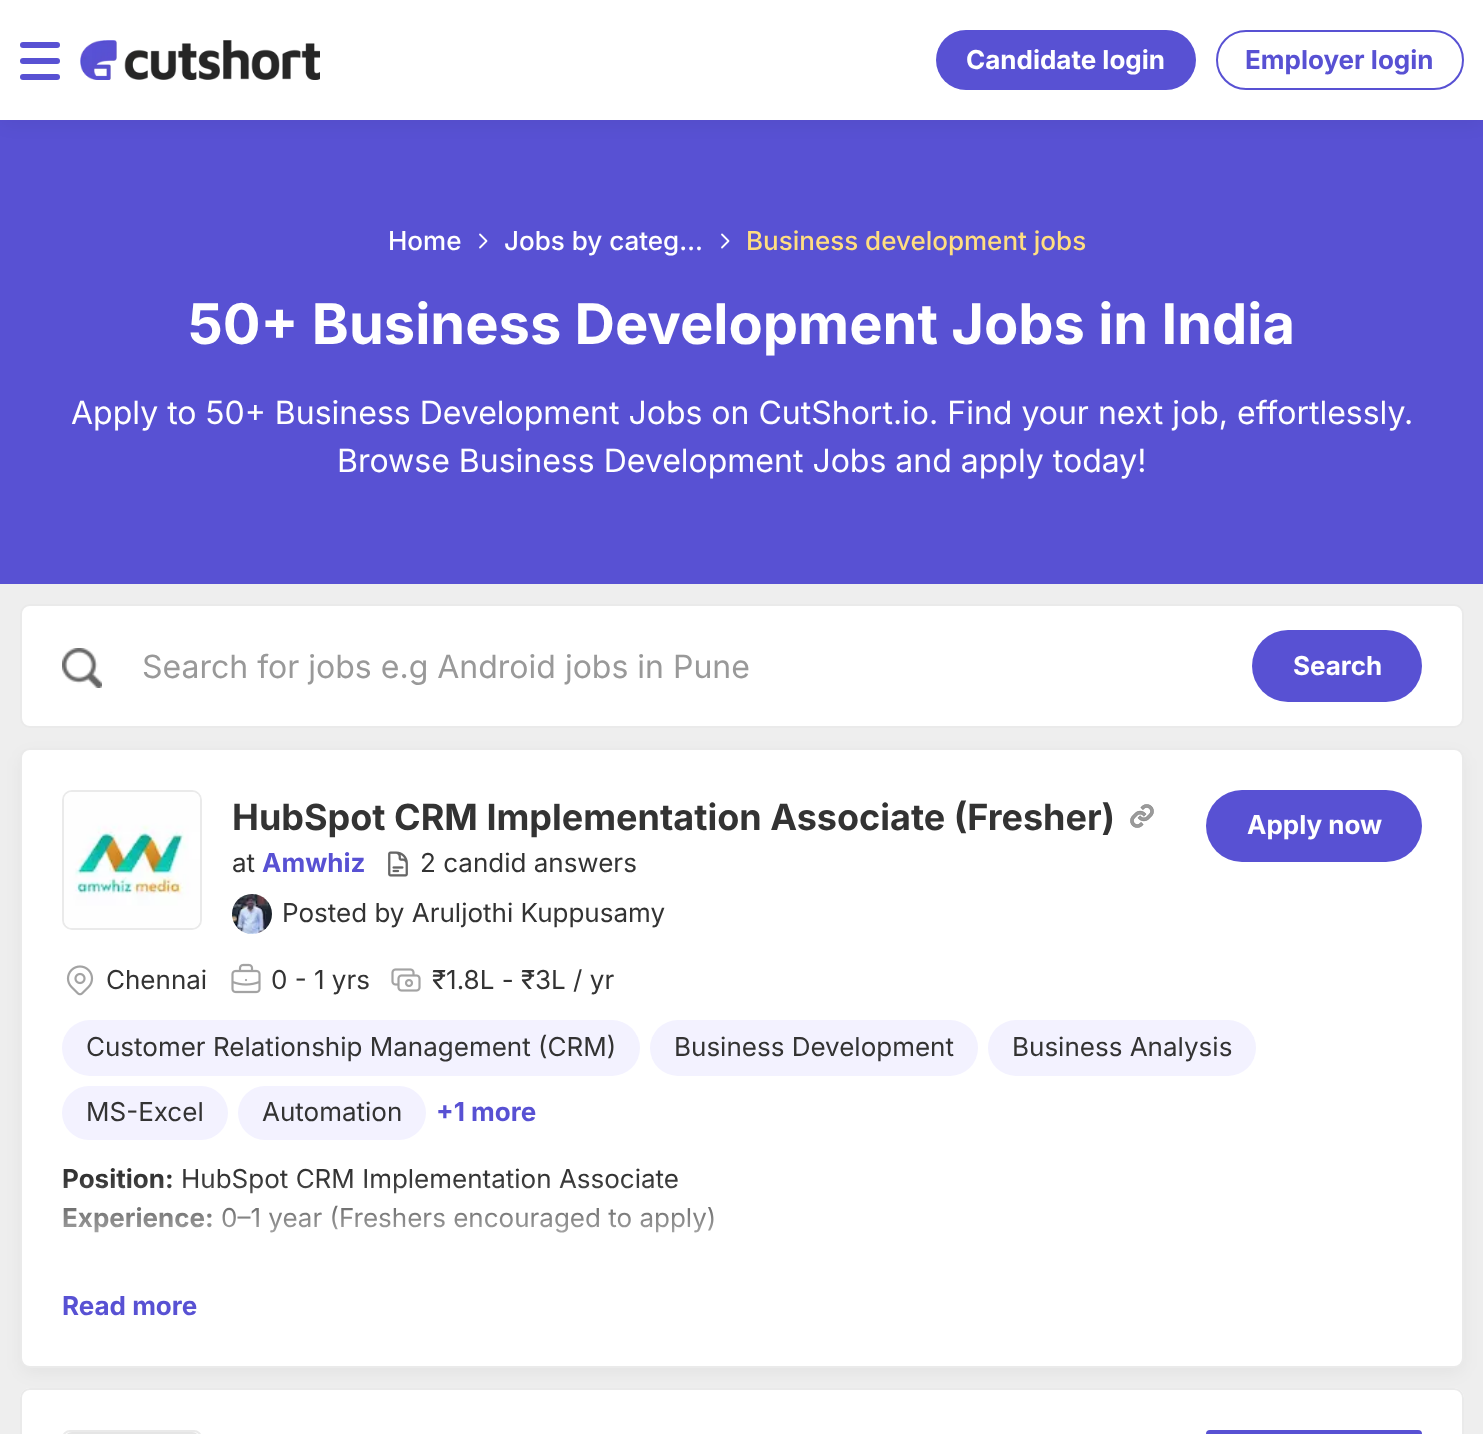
async function draw(canvas) {
	canvas.width = 1483;
	canvas.height = 1434;
	const c = canvas.getContext('2d');
	c.miterLimit = 4;
	c.fontKerning = 'normal';
	async function loadImage(src) {
		const img = new Image();
		img.src = src;
		await img.decode();
		return img;
	}
	let gradient;

	c.fillStyle = '#eee';
	c.fillRect(0, 0, 1483, 1434);
	c.fillStyle = '#5851d3';
	c.fillRect(0, 120, 1483, 464);
	c.fillStyle = '#0000000d';
	c.filter = 'blur(9px)';
	c.beginPath();
	c.rect(2, 8, 1480, 116);
	c.fill();
	c.filter = 'none';
	c.fillStyle = '#fff';
	c.fillRect(0, 0, 1483, 120);
	c.fillStyle = '#5851d3';
	c.beginPath();
	c.roundRect(20, 42, 40, 6, 3);
	c.fill();
	c.beginPath();
	c.roundRect(20, 58, 40, 6, 3);
	c.fill();
	c.beginPath();
	c.roundRect(20, 74, 40, 6, 3);
	c.fill();
	c.drawImage(await loadImage('img1.png'), 80, 40, 240, 40);
	c.beginPath();
	c.roundRect(936, 30, 260, 60, 30);
	c.fill();
	c.font = 'bold 26px Inter';
	c.fillStyle = '#fff';
	c.fillText('Candidate login', 966, 69);
	c.beginPath();
	c.roundRect(1217, 31, 246, 58, 29);
	c.strokeStyle = '#5851d3';
	c.lineWidth = 2;
	c.stroke();
	c.fillStyle = '#5851d3';
	c.fillText('Employer login', 1245, 69);
	c.font = '500 26px Inter';
	c.fillStyle = '#fff';
	c.fillText('Home', 388, 250);
	c.beginPath();
	c.moveTo(480, 234.5);
	c.lineTo(486.5, 241);
	c.lineTo(480, 247.5);
	c.strokeStyle = '#fff';
	c.lineWidth = 1.8;
	c.lineCap = 'round';
	c.lineJoin = 'round';
	c.stroke();
	c.fillText('Jobs by categ…', 504, 250);
	c.beginPath();
	c.moveTo(722, 234.5);
	c.lineTo(728.5, 241);
	c.lineTo(722, 247.5);
	c.stroke();
	c.fillStyle = '#ffde80';
	c.fillText('Business development jobs', 746, 250);
	c.font = 'bold 56px Inter';
	c.fillStyle = '#fff';
	c.fillText('50+ Business Development Jobs in India', 188, 344);
	c.font = '32px Inter';
	c.fillText('Apply to 50+ Business Development Jobs on CutShort.io. Find your next job, effortlessly.', 71, 424);
	c.fillText('Browse Business Development Jobs and apply today!', 337, 472);
	c.beginPath();
	c.roundRect(21, 605, 1442, 122, 9);
	c.fill();
	c.strokeStyle = '#eaeaea';
	c.lineWidth = 2;
	c.lineJoin = 'miter';
	c.stroke();
	c.drawImage(await loadImage('img2.png'), 62, 648, 40, 40);
	c.fillStyle = '#999';
	c.fillText('Search for jobs e.g Android jobs in Pune', 142, 678);
	c.fillStyle = '#5851d3';
	c.beginPath();
	c.roundRect(1252, 630, 170, 72, 36);
	c.fill();
	c.font = 'bold 26px Inter';
	c.fillStyle = '#fff';
	c.fillText('Search', 1293, 675);
	c.fillStyle = '#0000000d';
	c.filter = 'blur(9px)';
	c.beginPath();
	c.roundRect(22, 756, 1440, 616, 8);
	c.fill();
	c.filter = 'none';
	c.fillStyle = '#fff';
	c.beginPath();
	c.roundRect(21, 749, 1442, 618, 9);
	c.fill();
	c.stroke();
	c.beginPath();
	c.roundRect(63, 791, 138, 138, 9);
	c.stroke();
	c.drawImage(await loadImage('img3.png'), 64, 792, 136, 136);
	c.font = 'bold 36px Inter';
	c.fillStyle = '#333';
	c.fillText('HubSpot CRM Implementation Associate (Fresher)', 232, 830);
	c.drawImage(await loadImage('img4.png'), 1130, 804, 24, 24);
	c.font = '26px Inter';
	c.fillText('at', 232, 872);
	c.font = 'bold 26px Inter';
	c.fillStyle = '#5851d3';
	c.fillText('Amwhiz', 262, 872);
	c.drawImage(await loadImage('img5.png'), 388, 851, 20, 26);
	c.font = '26px Inter';
	c.fillStyle = '#333';
	c.fillText('2 candid answers', 420, 872);
	c.drawImage(await loadImage('img6.png'), 232, 894, 40, 40);
	c.fillText('Posted by Aruljothi Kuppusamy', 282, 922);
	c.fillStyle = '#5851d3';
	c.beginPath();
	c.roundRect(1206, 790, 216, 72, 36);
	c.fill();
	c.font = 'bold 26px Inter';
	c.fillStyle = '#fff';
	c.fillText('Apply now', 1247, 834);
	c.drawImage(await loadImage('img7.png'), 66, 965, 28, 31);
	c.font = '26px Inter';
	c.fillStyle = '#333';
	c.fillText('Chennai', 106, 989);
	c.drawImage(await loadImage('img8.png'), 231, 963, 30, 31);
	c.fillText('0 - 1 yrs', 271, 989);
	c.drawImage(await loadImage('img9.png'), 391, 968, 30, 24);
	c.fillText('₹1.8L - ₹3L / yr', 432, 989);
	c.fillStyle = '#f3f2ff';
	c.beginPath();
	c.roundRect(62, 1020, 578, 56, 28);
	c.fill();
	c.fillStyle = '#333';
	c.fillText('Customer Relationship Management (CRM)', 86, 1056);
	c.fillStyle = '#f3f2ff';
	c.beginPath();
	c.roundRect(650, 1020, 328, 56, 28);
	c.fill();
	c.fillStyle = '#333';
	c.fillText('Business Development', 674, 1056);
	c.fillStyle = '#f3f2ff';
	c.beginPath();
	c.roundRect(988, 1020, 268, 56, 28);
	c.fill();
	c.fillStyle = '#333';
	c.fillText('Business Analysis', 1012, 1056);
	c.fillStyle = '#f3f2ff';
	c.beginPath();
	c.roundRect(62, 1086, 166, 54, 27);
	c.fill();
	c.fillStyle = '#333';
	c.fillText('MS-Excel', 86, 1121);
	c.fillStyle = '#f3f2ff';
	c.beginPath();
	c.roundRect(238, 1086, 188, 54, 27);
	c.fill();
	c.fillStyle = '#333';
	c.fillText('Automation', 262, 1121);
	c.font = 'bold 26px Inter';
	c.fillStyle = '#5851d3';
	c.fillText('+1 more', 436, 1121);
	c.fillStyle = '#333';
	c.fillText('Position:', 62, 1188);
	c.font = '26px Inter';
	c.fillText('HubSpot CRM Implementation Associate', 181, 1188);
	c.font = 'bold 26px Inter';
	c.fillText('Experience:', 62, 1227);
	c.font = '26px Inter';
	c.fillText('0–1 year (Freshers encouraged to apply)', 221, 1227);
	gradient = c.createLinearGradient(742, 1278, 742, 1178);
	gradient.addColorStop(0, '#fff');
	gradient.addColorStop(1, '#ffffff00');
	c.fillStyle = gradient;
	c.fillRect(63, 1180, 651, 53);
	c.font = 'bold 26px Inter';
	c.fillStyle = '#5851d3';
	c.fillText('Read more', 62, 1315);
	c.fillStyle = '#fff';
	c.beginPath();
	c.roundRect(20, 1388, 1444, 46, [10, 10, 0, 0]);
	c.fill();
	c.beginPath();
	c.roundRect(21, 1389, 1442, 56, 9);
	c.stroke();
	c.beginPath();
	c.roundRect(63, 1431, 138, 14, 9);
	c.stroke();
	c.drawImage(await loadImage('img10.png'), 67, 1432, 130, 2);
	c.fillStyle = '#5851d3';
	c.beginPath();
	c.roundRect(1206, 1430, 216, 4, [36, 36, 0, 0]);
	c.fill();
}

draw(document.querySelector('canvas'));
